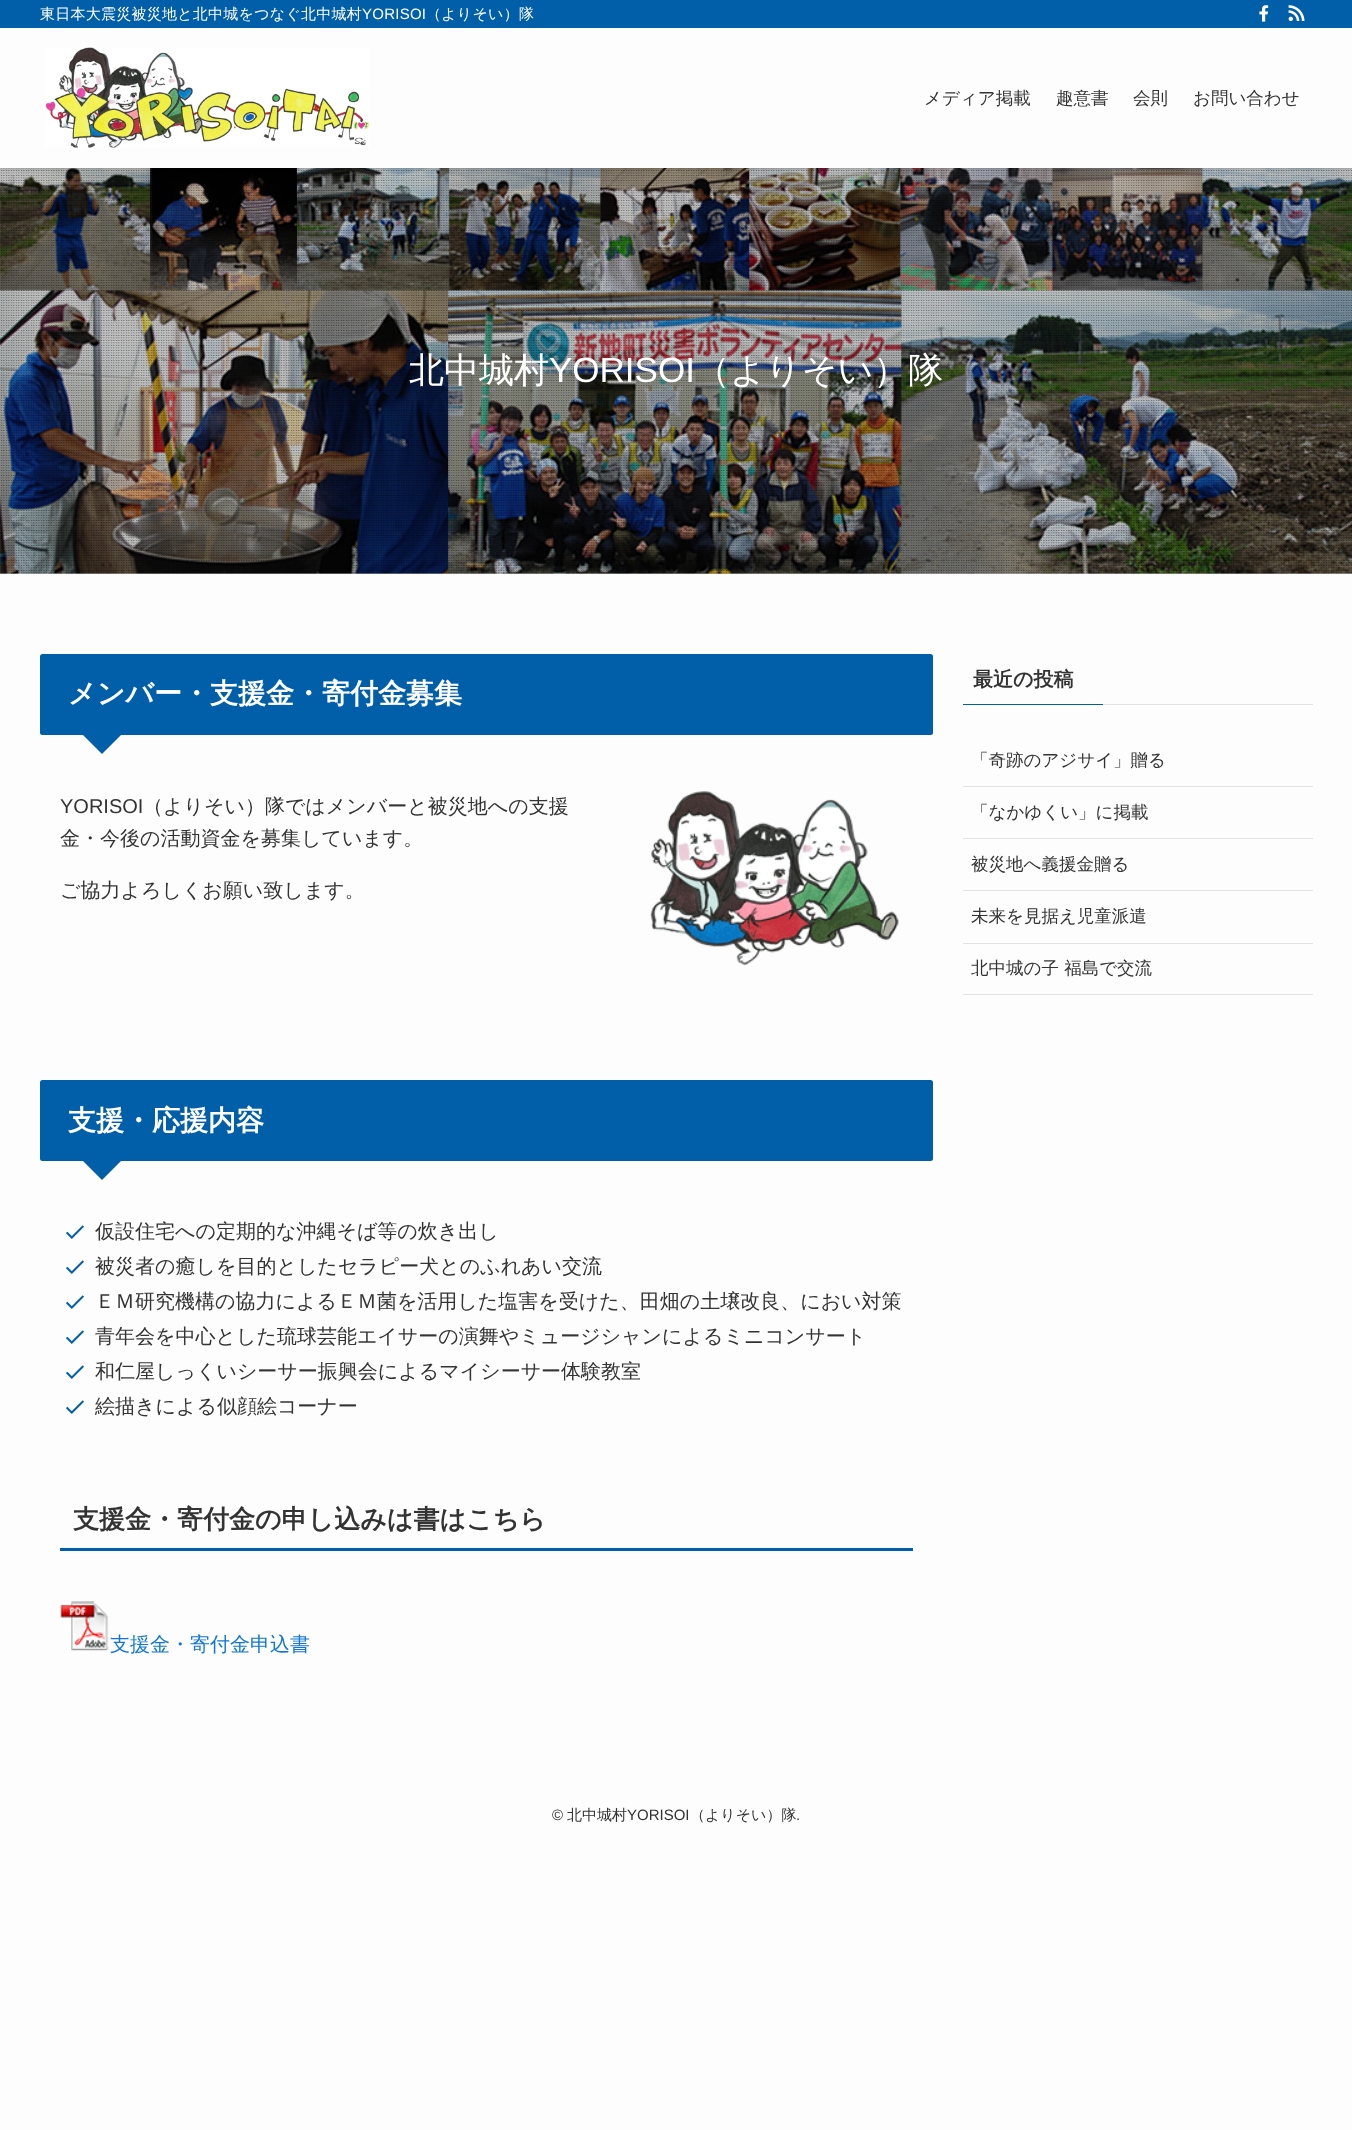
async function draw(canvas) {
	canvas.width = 1352;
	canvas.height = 2130;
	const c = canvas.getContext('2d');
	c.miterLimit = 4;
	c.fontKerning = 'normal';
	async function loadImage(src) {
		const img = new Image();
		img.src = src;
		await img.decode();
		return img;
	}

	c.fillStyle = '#fdfdfd';
	c.fillRect(0, 0, 1352, 2130);
	c.fillStyle = '#c0c0c0';
	c.fillRect(0, 573, 1352, 1);
	c.drawImage(await loadImage('img4.png'), 0, 168, 1352, 406);
	c.drawImage(await loadImage('img5.png'), 0, 168, 1352, 406);
	c.fillStyle = '#0000001f';
	c.filter = 'blur(2.5px)';
	c.beginPath();
	c.rect(0, 1, 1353, 168);
	c.fill();
	c.filter = 'none';
	c.fillStyle = '#fdfdfd';
	c.fillRect(0, 28, 1352, 140);
	c.fillStyle = '#005fa8';
	c.fillRect(0, 0, 1352, 28);
	c.letterSpacing = '0.25px';
	c.font = '500 15px WenQuanYi Zen Hei';
	c.fillStyle = '#fff';
	c.fillText('東日本大震災被災地と北中城をつなぐ北中城村', 40, 19);
	c.font = '15px Liberation Sans';
	c.fillText('YORISOI', 362, 19);
	c.font = '500 15px WenQuanYi Zen Hei';
	c.fillText('（よりそい）隊', 426, 19);
	c.drawImage(await loadImage('img1.png'), 1259, 5, 10, 17);
	c.drawImage(await loadImage('img2.png'), 1288, 5, 17, 16);
	c.drawImage(await loadImage('img3.png'), 45, 47, 325, 101);
	c.letterSpacing = '0px';
	c.font = '500 17.5px WenQuanYi Zen Hei';
	c.fillStyle = '#333';
	for (const [text, x, y] of [
		['メディア掲載', 924, 104],
		['趣意書', 1056, 104],
		['会則', 1133, 104],
		['お問い合わせ', 1193, 104],
	]) {
		c.fillText(text, x, y);
	}
	c.font = '500 35px WenQuanYi Zen Hei';
	c.fillStyle = '#fff';
	c.fillText('北中城村', 409, 382);
	c.font = '35px Liberation Sans';
	c.fillText('YORISOI', 549, 382);
	c.font = '500 35px WenQuanYi Zen Hei';
	c.fillText('（よりそい）隊', 695, 382);
	c.fillStyle = '#005fa8';
	c.beginPath();
	c.roundRect(40, 654, 893, 81, 2.5);
	c.fill();
	c.font = 'bold 28px WenQuanYi Zen Hei';
	c.fillStyle = '#fff';
	c.fillText('メンバー・支援金・寄付金募集', 68, 703);
	c.fillStyle = '#005fa8';
	c.beginPath();
	c.moveTo(82, 734);
	c.lineTo(122, 734);
	c.lineTo(102, 754);
	c.closePath();
	c.fill();
	c.font = '20px Liberation Sans';
	c.fillStyle = '#333';
	c.fillText('YORISOI', 60, 813);
	c.font = '500 20px WenQuanYi Zen Hei';
	for (const [text, x, y] of [
		['（よりそい）隊ではメンバーと被災地への支援', 143, 813],
		['金・今後の活動資金を募集しています。', 60, 845],
		['ご協力よろしくお願い致します。', 60, 897],
	]) {
		c.fillText(text, x, y);
	}
	c.drawImage(await loadImage('img6.png'), 650, 791, 249, 175);
	c.fillStyle = '#005fa8';
	c.beginPath();
	c.roundRect(40, 1080, 893, 81, 2.5);
	c.fill();
	c.font = 'bold 28px WenQuanYi Zen Hei';
	c.fillStyle = '#fff';
	c.fillText('支援・応援内容', 68, 1130);
	c.fillStyle = '#005fa8';
	c.beginPath();
	c.moveTo(82, 1160);
	c.lineTo(122, 1160);
	c.lineTo(102, 1180);
	c.closePath();
	c.fill();
	c.drawImage(await loadImage('img7.png'), 66, 1225, 18, 14);
	c.font = '500 20px WenQuanYi Zen Hei';
	c.fillStyle = '#333';
	c.fillText('仮設住宅への定期的な沖縄そば等の炊き出し', 95, 1238);
	c.drawImage(await loadImage('img7.png'), 66, 1260, 18, 14);
	c.fillText('被災者の癒しを目的としたセラピー犬とのふれあい交流', 95, 1273);
	c.drawImage(await loadImage('img7.png'), 66, 1295, 18, 14);
	c.fillText('ＥＭ研究機構の協力によるＥＭ菌を活用した塩害を受けた、田畑の土壌改良、におい対策', 95, 1308);
	c.drawImage(await loadImage('img7.png'), 66, 1330, 18, 14);
	c.fillText('青年会を中心とした琉球芸能エイサーの演舞やミュージシャンによるミニコンサート', 95, 1343);
	c.drawImage(await loadImage('img7.png'), 66, 1365, 18, 14);
	c.fillText('和仁屋しっくいシーサー振興会によるマイシーサー体験教室', 95, 1378);
	c.drawImage(await loadImage('img7.png'), 66, 1400, 18, 14);
	c.fillText('絵描きによる似顔絵コーナー', 95, 1413);
	c.font = 'bold 26px WenQuanYi Zen Hei';
	c.fillText('支援金・寄付金の申し込みは書はこちら', 73, 1528);
	c.fillStyle = '#005fa8';
	c.fillRect(60, 1548, 853, 3);
	c.drawImage(await loadImage('img8.png'), 60, 1601, 49, 50);
	c.font = '500 20px WenQuanYi Zen Hei';
	c.fillStyle = '#1176d4';
	c.fillText('支援金・寄付金申込書', 110, 1651);
	c.font = 'bold 20px WenQuanYi Zen Hei';
	c.fillStyle = '#333';
	c.fillText('最近の投稿', 973, 686);
	for (const [x, y, w, h, color] of [
		[963, 704, 140, 1, '#005fa8'],
		[1103, 704, 210, 1, '#e2e2e2'],
		[963, 786, 350, 1, '#e2e2e2'],
	]) {
		c.fillStyle = color;
		c.fillRect(x, y, w, h);
	}
	c.font = '500 17.5px WenQuanYi Zen Hei';
	c.fillStyle = '#333';
	c.fillText('「奇跡のアジサイ」贈る', 971, 766);
	c.fillStyle = '#e2e2e2';
	c.fillRect(963, 838, 350, 1);
	c.fillStyle = '#333';
	c.fillText('「なかゆくい」に掲載', 971, 818);
	c.fillStyle = '#e2e2e2';
	c.fillRect(963, 890, 350, 1);
	c.fillStyle = '#333';
	c.fillText('被災地へ義援金贈る', 971, 870);
	c.fillStyle = '#e2e2e2';
	c.fillRect(963, 943, 350, 1);
	c.fillStyle = '#333';
	c.fillText('未来を見据え児童派遣', 971, 922);
	c.fillStyle = '#e2e2e2';
	c.fillRect(963, 994, 350, 1);
	c.fillStyle = '#333';
	c.fillText('北中城の子 福島で交流', 971, 974);
	c.font = '15px Liberation Sans';
	c.fillText('©', 552, 1820);
	c.font = '500 15px WenQuanYi Zen Hei';
	c.fillText('北中城村', 567, 1820);
	c.font = '15px Liberation Sans';
	c.fillText('YORISOI', 627, 1820);
	c.font = '500 15px WenQuanYi Zen Hei';
	c.fillText('（よりそい）隊', 690, 1820);
	c.font = '15px Liberation Sans';
	c.fillText('.', 796, 1820);
}

draw(document.querySelector('canvas'));
